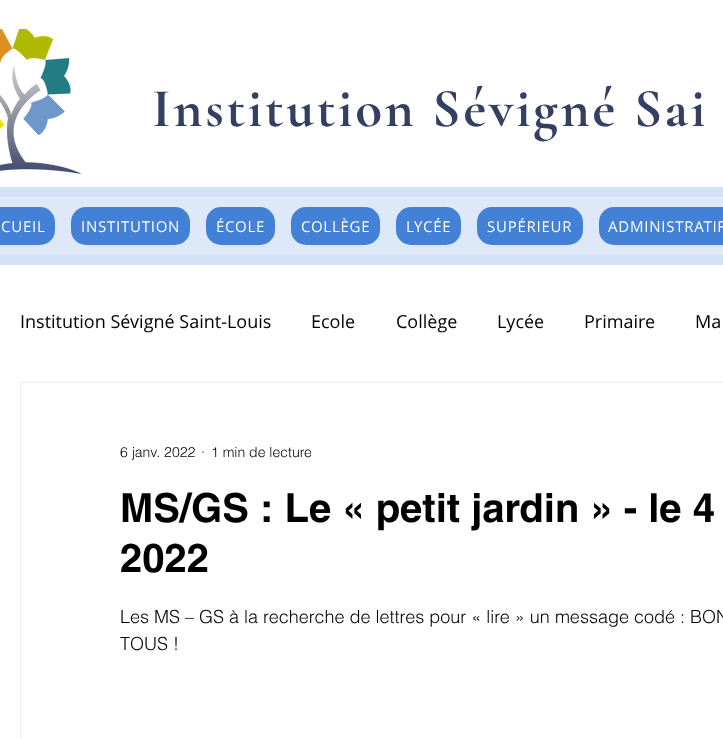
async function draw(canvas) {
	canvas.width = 723;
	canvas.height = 739;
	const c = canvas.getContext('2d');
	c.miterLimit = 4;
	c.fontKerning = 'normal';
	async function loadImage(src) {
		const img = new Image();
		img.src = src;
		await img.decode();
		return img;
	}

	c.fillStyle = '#fff';
	c.fillRect(0, 0, 723, 739);
	c.drawImage(await loadImage('img1.png'), 0, 29, 82, 146);
	c.letterSpacing = '2.75px';
	c.font = 'bold 55px Cormorant Garamond';
	c.fillStyle = '#343f64';
	c.fillText('Institution Sévigné Sai', 152, 126);
	c.fillStyle = '#dde8f8';
	c.beginPath();
	c.rect(-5, 192, 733, 68);
	c.fill();
	c.strokeStyle = '#d3e2f6';
	c.lineWidth = 10;
	c.stroke();
	c.fillStyle = '#4381d6';
	c.beginPath();
	c.roundRect(-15, 207, 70, 38, 15);
	c.fill();
	c.letterSpacing = '0.75px';
	c.font = '15px Open Sans';
	c.fillStyle = '#fff';
	c.fillText('CUEIL', 1, 232);
	c.fillStyle = '#4381d6';
	c.beginPath();
	c.roundRect(71, 207, 119, 38, 15);
	c.fill();
	c.fillStyle = '#fff';
	c.fillText('INSTITUTION', 81, 232);
	c.fillStyle = '#4381d6';
	c.beginPath();
	c.roundRect(206, 207, 69, 38, 15);
	c.fill();
	c.fillStyle = '#fff';
	c.fillText('ÉCOLE', 216, 232);
	c.fillStyle = '#4381d6';
	c.beginPath();
	c.roundRect(291, 207, 89, 38, 15);
	c.fill();
	c.fillStyle = '#fff';
	c.fillText('COLLÈGE', 301, 232);
	c.fillStyle = '#4381d6';
	c.beginPath();
	c.roundRect(396, 207, 65, 38, 15);
	c.fill();
	c.fillStyle = '#fff';
	c.fillText('LYCÉE', 406, 232);
	c.fillStyle = '#4381d6';
	c.beginPath();
	c.roundRect(477, 207, 106, 38, 15);
	c.fill();
	c.fillStyle = '#fff';
	c.fillText('SUPÉRIEUR', 487, 232);
	c.fillStyle = '#4381d6';
	c.beginPath();
	c.roundRect(599, 207, 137, 38, 15);
	c.fill();
	c.fillStyle = '#fff';
	c.fillText('ADMINISTRATIF', 608, 232);
	c.letterSpacing = '0px';
	c.font = '18px Open Sans';
	c.fillStyle = '#000';
	for (const [text, x, y] of [
		['Institution Sévigné Saint-Louis', 20, 328],
		['Ecole', 311, 328],
		['Collège', 396, 328],
		['Lycée', 497, 328],
		['Primaire', 584, 328],
		['Ma', 695, 328],
	]) {
		c.fillText(text, x, y);
	}
	c.strokeStyle = '#eeecec';
	c.lineWidth = 1;
	c.strokeRect(20.5, 382.5, 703, 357);
	c.font = '300 14px helvetica';
	for (const [text, x, y] of [
		['6 janv. 2022', 120, 457],
		['·', 201, 457],
		['1 min de lecture', 211, 457],
	]) {
		c.fillText(text, x, y);
	}
	c.font = 'bold 40px helvetica';
	c.fillText('MS/GS : Le « petit jardin » - le 4', 120, 522);
	c.fillText('2022', 120, 572);
	c.font = '300 18px helvetica';
	c.fillText('Les MS – GS à la recherche de lettres pour « lire » un message codé : BON', 120, 623);
	c.fillText('TOUS !', 120, 650);
}

draw(document.querySelector('canvas'));
